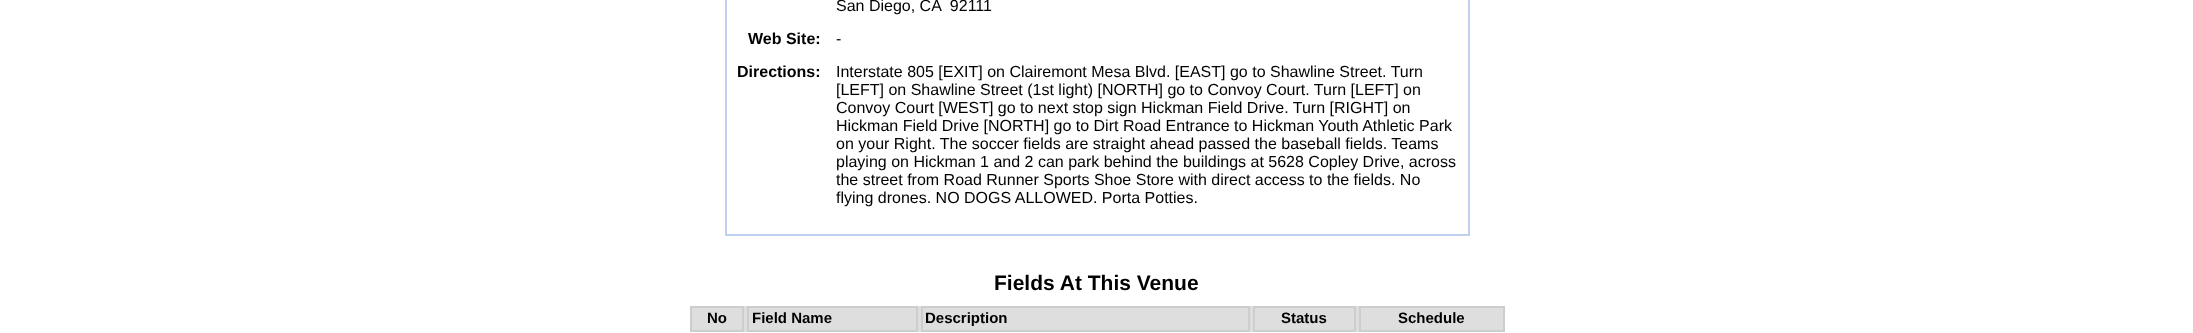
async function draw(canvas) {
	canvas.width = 2193;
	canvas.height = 333;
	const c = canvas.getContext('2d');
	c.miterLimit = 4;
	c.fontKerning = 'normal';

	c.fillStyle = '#fff';
	c.fillRect(0, 0, 2193, 333);
	c.strokeStyle = '#c0d0f0';
	c.lineWidth = 2;
	c.strokeRect(726, -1, 743, 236);
	c.font = '16px Liberation Sans';
	c.fillStyle = '#000';
	c.fillText('San Diego, CA  92111', 836, 11);
	c.font = 'bold 16px Liberation Sans';
	c.fillText('Web Site:', 748, 44);
	c.font = '16px Liberation Sans';
	c.fillText('-', 836, 44);
	c.font = 'bold 16px Liberation Sans';
	c.fillText('Directions:', 737, 77);
	c.font = '16px Liberation Sans';
	for (const [text, x, y] of [
		['Interstate 805 [EXIT] on Clairemont Mesa Blvd. [EAST] go to Shawline Street. Turn', 836, 77],
		['[LEFT] on Shawline Street (1st light) [NORTH] go to Convoy Court. Turn [LEFT] on', 836, 95],
		['Convoy Court [WEST] go to next stop sign Hickman Field Drive. Turn [RIGHT] on', 836, 113],
		['Hickman Field Drive [NORTH] go to Dirt Road Entrance to Hickman Youth Athletic Park', 836, 131],
		['on your Right. The soccer fields are straight ahead passed the baseball fields. Teams', 836, 149],
		['playing on Hickman 1 and 2 can park behind the buildings at 5628 Copley Drive, across', 836, 167],
		['the street from Road Runner Sports Shoe Store with direct access to the fields. No', 836, 185],
		['flying drones. NO DOGS ALLOWED. Porta Potties.', 836, 203],
	]) {
		c.fillText(text, x, y);
	}
	c.font = 'bold 21px Liberation Sans';
	c.fillText('Fields At This Venue', 994, 290);
	c.fillStyle = '#dedede';
	c.fillRect(692, 306, 811, 26);
	c.strokeStyle = '#cdcdcd';
	c.strokeRect(691, 307, 52, 24);
	c.font = 'bold 15px Liberation Sans';
	c.fillStyle = '#000';
	c.fillText('No', 707, 323);
	c.strokeRect(748, 307, 169, 24);
	c.fillText('Field Name', 752, 323);
	c.strokeRect(922, 307, 327, 24);
	c.fillText('Description', 925, 323);
	c.strokeRect(1254, 307, 101, 24);
	c.fillText('Status', 1281, 323);
	c.strokeRect(1360, 307, 144, 24);
	c.fillText('Schedule', 1398, 323);
}

draw(document.querySelector('canvas'));
